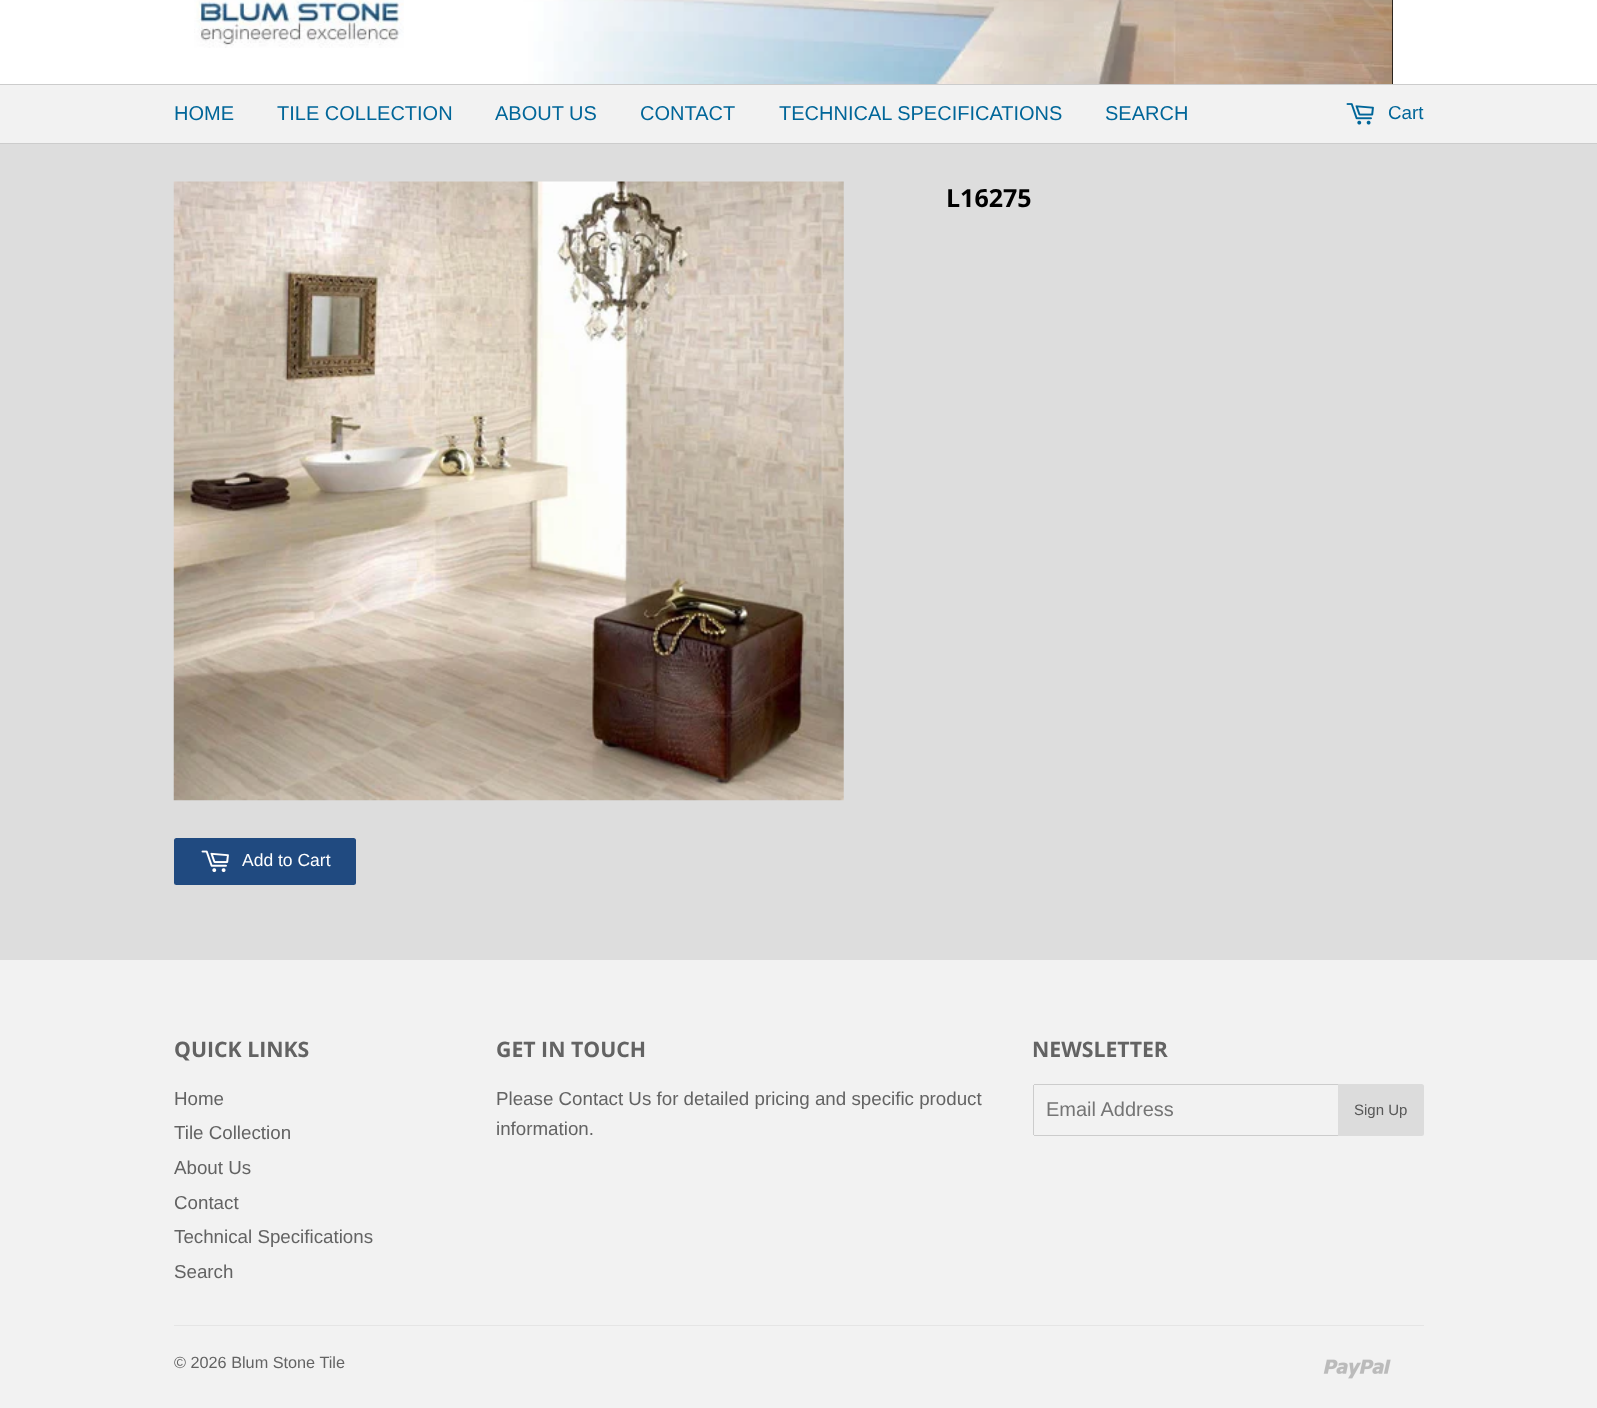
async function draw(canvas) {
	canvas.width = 1597;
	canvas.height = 1408;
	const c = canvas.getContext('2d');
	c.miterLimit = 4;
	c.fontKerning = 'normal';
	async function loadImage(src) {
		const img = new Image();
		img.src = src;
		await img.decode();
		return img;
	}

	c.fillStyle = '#ddd';
	c.fillRect(0, 0, 1597, 1408);
	c.fillStyle = '#fff';
	c.fillRect(0, 0, 1597, 84);
	c.drawImage(await loadImage('img1.png'), 194, 0, 210, 48);
	c.fillStyle = '#000';
	c.fillRect(1392, 0, 1, 84);
	c.drawImage(await loadImage('img2.png'), 424, 0, 969, 84);
	for (const [x, y, w, h, color] of [
		[0, 85, 1597, 58, '#f2f2f2'],
		[0, 84, 1597, 1, '#ccc'],
		[0, 143, 1597, 1, '#ccc'],
	]) {
		c.fillStyle = color;
		c.fillRect(x, y, w, h);
	}
	c.font = '20px Liberation Sans';
	c.fillStyle = '#069';
	for (const [text, x, y] of [
		['HOME', 174, 120],
		['TILE COLLECTION', 277, 120],
		['ABOUT US', 495, 120],
		['CONTACT', 640, 120],
		['TECHNICAL SPECIFICATIONS', 779, 120],
		['SEARCH', 1105, 120],
	]) {
		c.fillText(text, x, y);
	}
	c.drawImage(await loadImage('img3.png'), 1346, 103, 28, 22);
	c.font = '18.75px Liberation Sans';
	c.fillText('Cart', 1388, 119);
	c.font = 'bold 25px Open Sans';
	c.fillStyle = '#000';
	c.fillText('L16275', 946, 207);
	c.drawImage(await loadImage('img4.png'), 173, 181, 671, 620);
	c.fillStyle = '#204a80';
	c.beginPath();
	c.roundRect(174, 838, 182, 47, 2.5);
	c.fill();
	c.drawImage(await loadImage('img5.png'), 201, 850, 28, 23);
	c.font = '17.5px Liberation Sans';
	c.fillStyle = '#fff';
	c.fillText('Add to Cart', 242, 866);
	c.fillStyle = '#f2f2f2';
	c.fillRect(0, 960, 1597, 448);
	c.font = 'bold 21.25px Open Sans';
	c.fillStyle = '#636363';
	c.fillText('QUICK LINKS', 174, 1057);
	c.font = '18.75px Liberation Sans';
	for (const [text, x, y] of [
		['Home', 174, 1105],
		['Tile Collection', 174, 1139],
		['About Us', 174, 1174],
		['Contact', 174, 1209],
		['Technical Specifications', 174, 1243],
		['Search', 174, 1278],
	]) {
		c.fillText(text, x, y);
	}
	c.font = 'bold 21.25px Open Sans';
	c.fillText('GET IN TOUCH', 496, 1057);
	c.font = '18.75px Liberation Sans';
	c.fillText('Please Contact Us for detailed pricing and specific product', 496, 1105);
	c.fillText('information.', 496, 1135);
	c.font = 'bold 21.25px Open Sans';
	c.fillText('NEWSLETTER', 1032, 1057);
	for (const [x, y, w, h, color] of [
		[1034, 1084, 304, 1, '#ccc'],
		[1034, 1135, 304, 1, '#ccc'],
		[1033, 1085, 1, 50, '#ccc'],
	]) {
		c.fillStyle = color;
		c.fillRect(x, y, w, h);
	}
	c.font = '20px Liberation Sans';
	c.fillStyle = '#757575';
	c.fillText('Email Address', 1046, 1116);
	c.fillStyle = '#dcdcdc';
	c.beginPath();
	c.roundRect(1338, 1084, 86, 52, [0, 2.5, 2.5, 0]);
	c.fill();
	c.font = '15px Liberation Sans';
	c.fillStyle = '#585858';
	c.fillText('Sign Up', 1354, 1115);
	c.fillStyle = '#e5e5e5';
	c.fillRect(174, 1325, 1250, 1);
	c.font = '16.25px Liberation Sans';
	c.fillStyle = '#636363';
	c.fillText('© 2026 Blum Stone Tile', 174, 1368);
	c.drawImage(await loadImage('img6.png'), 1323, 1359, 68, 20);
}

draw(document.querySelector('canvas'));
